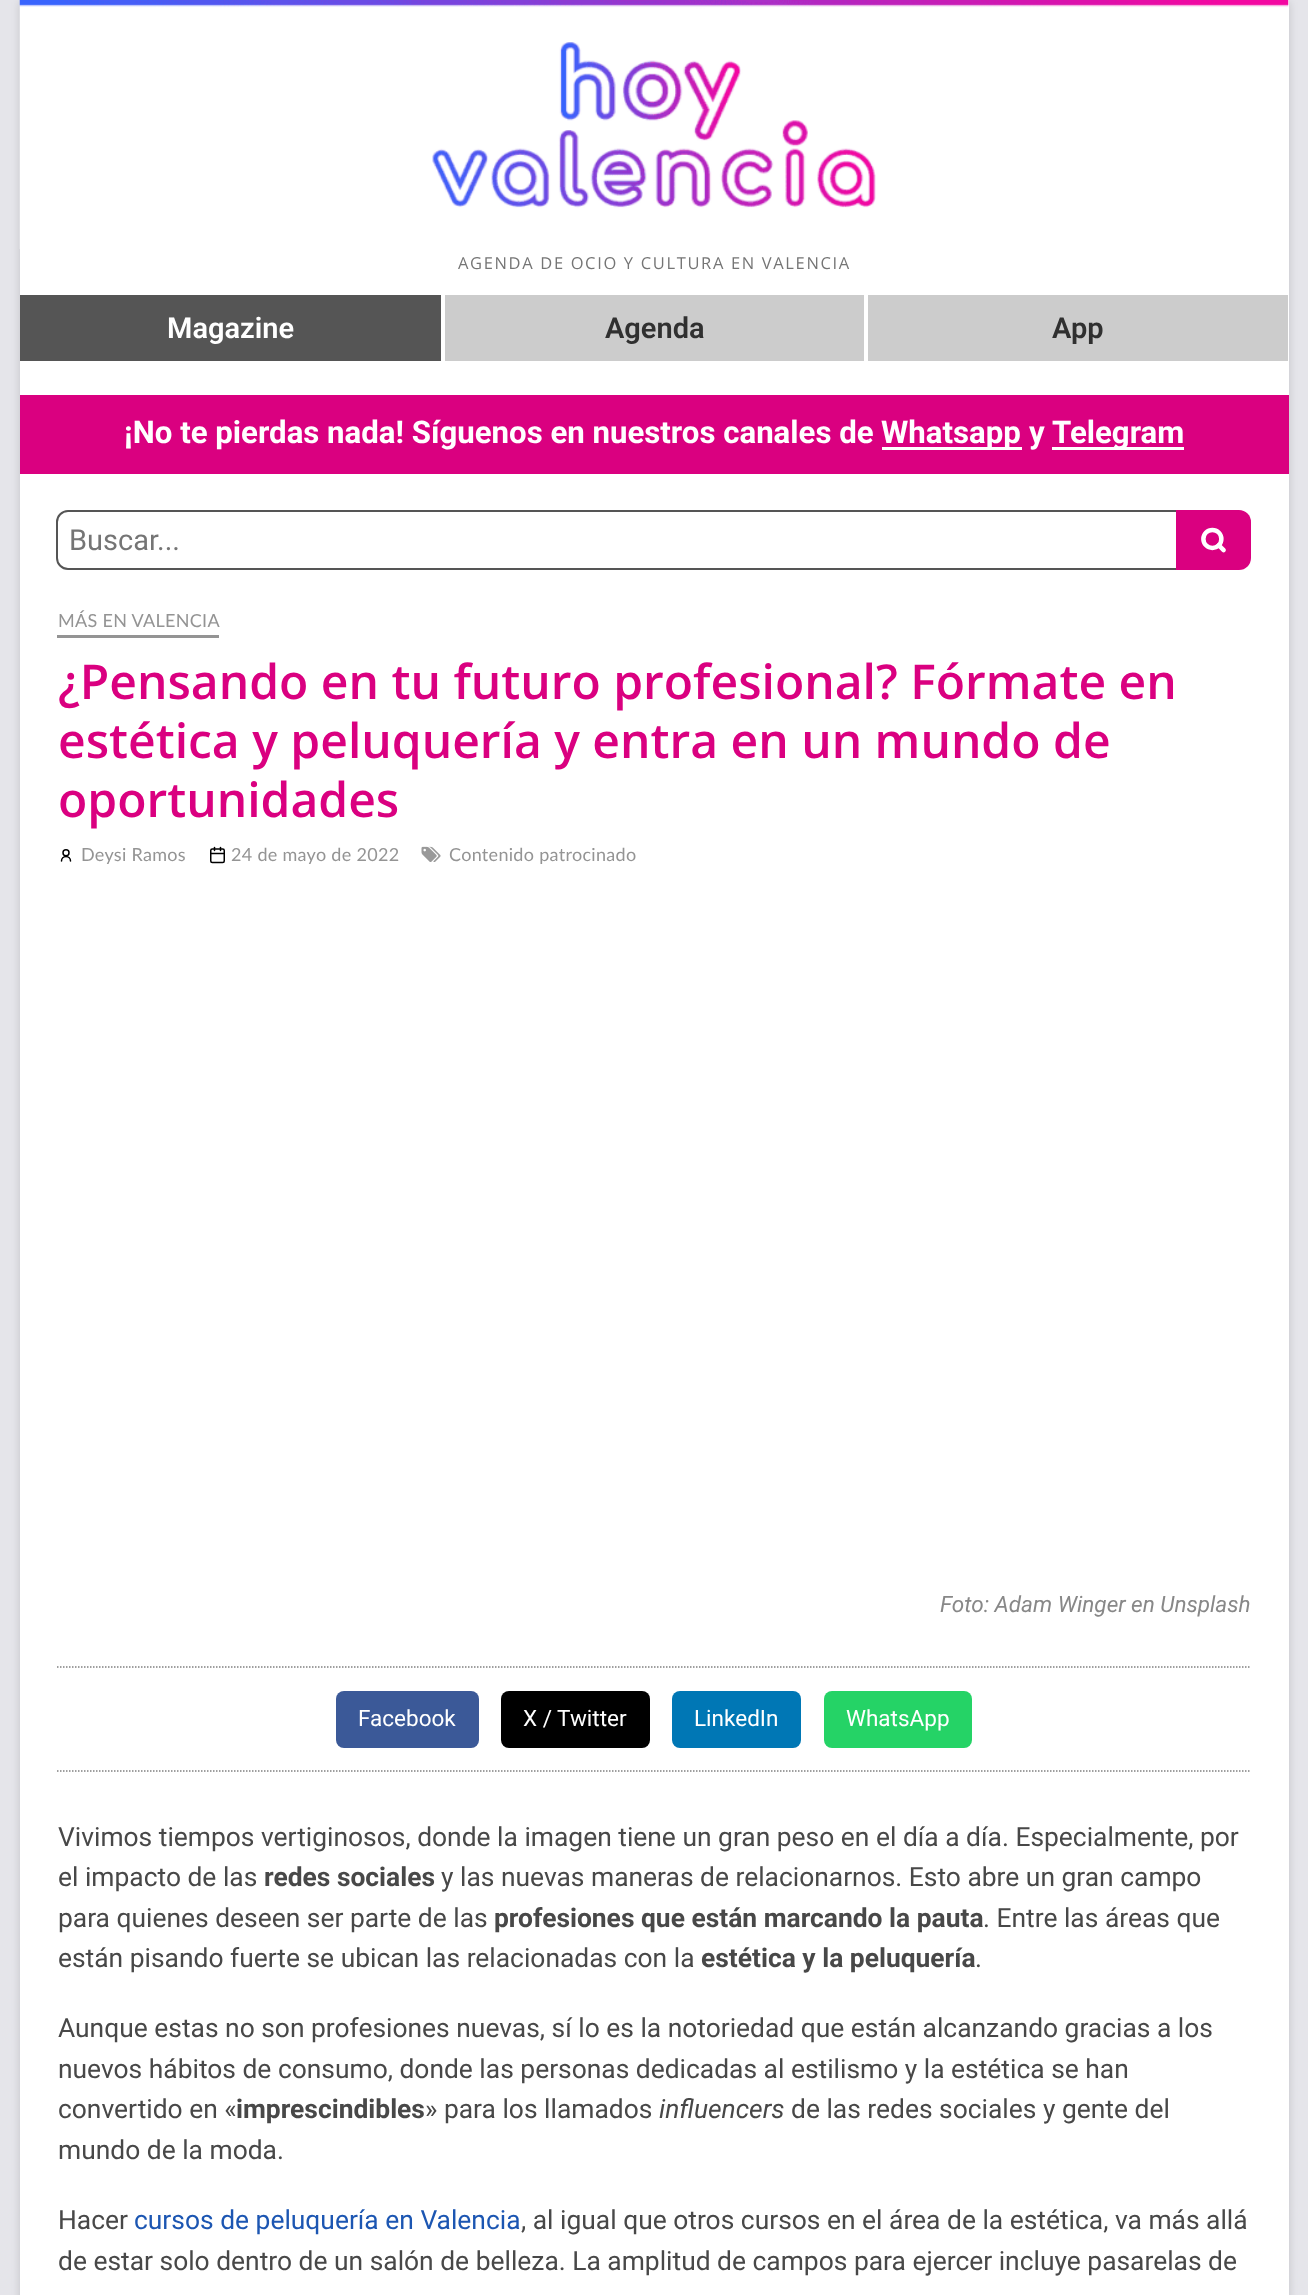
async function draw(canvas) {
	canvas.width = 1308;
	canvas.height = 2295;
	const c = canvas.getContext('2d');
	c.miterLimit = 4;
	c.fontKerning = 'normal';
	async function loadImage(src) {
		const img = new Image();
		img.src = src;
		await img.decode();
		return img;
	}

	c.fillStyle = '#e5e5ea';
	c.fillRect(0, 0, 1308, 2295);
	c.fillStyle = '#00000026';
	c.filter = 'blur(4.5px)';
	c.beginPath();
	c.rect(20, 2, 1269, 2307);
	c.fill();
	c.filter = 'none';
	c.fillStyle = '#fff';
	c.fillRect(20, 0, 1269, 2295);
	c.drawImage(await loadImage('img1.png'), 19, 0, 1270, 249);
	c.letterSpacing = '1.65px';
	c.font = '16.5px Open Sans';
	c.fillStyle = '#757575';
	c.fillText('AGENDA DE OCIO Y CULTURA EN VALENCIA', 458, 269);
	c.fillStyle = '#ccc';
	c.fillRect(445, 295, 843, 66);
	c.fillStyle = '#555';
	c.fillRect(20, 295, 421, 66);
	c.letterSpacing = '0px';
	c.font = '600 29px Roboto';
	c.fillStyle = '#fff';
	c.fillText('Magazine', 167, 338);
	c.strokeStyle = '#fff';
	c.lineWidth = 2;
	c.strokeRect(444, 294, 421, 68);
	c.fillStyle = '#303030';
	c.fillText('Agenda', 605, 338);
	c.save();
	c.beginPath();
	c.rect(20, 0, 1269, 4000);
	c.clip();
	c.strokeRect(867, 294, 422, 68);
	c.restore();
	c.fillText('App', 1052, 338);
	c.fillStyle = '#da0080';
	c.fillRect(20, 395, 1269, 79);
	c.font = 'bold 31.2px Roboto';
	c.fillStyle = '#fff';
	c.fillText('¡No te pierdas nada! Síguenos en nuestros canales de', 124, 443);
	c.fillRect(882, 447, 140, 3);
	c.fillText('Whatsapp', 881, 443);
	c.fillText('y', 1029, 443);
	c.fillRect(1052, 447, 132, 3);
	c.fillText('Telegram', 1052, 443);
	c.beginPath();
	c.roundRect(57, 511, 1120, 58, [11, 0, 0, 11]);
	c.strokeStyle = '#555';
	c.stroke();
	c.font = '29px Roboto';
	c.fillStyle = '#757575';
	c.fillText('Buscar...', 69, 550);
	c.fillStyle = '#da0080';
	c.beginPath();
	c.roundRect(1176, 510, 75, 60, [0, 12, 12, 0]);
	c.fill();
	c.drawImage(await loadImage('img2.png'), 1201, 527, 25, 26);
	c.letterSpacing = '0.3px';
	c.font = '18px Lato';
	c.fillStyle = '#949494';
	c.fillText('MÁS EN VALENCIA', 58, 627);
	c.fillRect(57, 635, 162, 3);
	c.letterSpacing = '0px';
	c.font = '600 48px Open Sans';
	c.fillStyle = '#da0080';
	for (const [text, x, y] of [
		['¿Pensando en tu futuro profesional? Fórmate en', 58, 699],
		['estética y peluquería y entra en un mundo de', 58, 758],
		['oportunidades', 58, 817],
	]) {
		c.fillText(text, x, y);
	}
	c.drawImage(await loadImage('img3.png'), 60, 849, 12, 13);
	c.letterSpacing = '0.3px';
	c.font = '18px Lato';
	c.fillStyle = '#949494';
	c.fillText('Deysi Ramos', 81, 861);
	c.drawImage(await loadImage('img4.png'), 210, 846, 15, 18);
	c.fillText('24 de mayo de 2022', 231, 861);
	c.drawImage(await loadImage('img5.png'), 421, 846, 20, 16);
	c.fillText('Contenido patrocinado', 449, 861);
	c.letterSpacing = '0px';
	c.font = 'italic 22.5px Roboto';
	c.fillStyle = '#888';
	c.fillText('Foto: Adam Winger en Unsplash', 940, 1612);
	c.beginPath();
	c.moveTo(57, 1667);
	c.lineTo(1251, 1667);
	c.strokeStyle = '#808080';
	c.lineWidth = 1.5;
	c.setLineDash([1.5, 1.5]);
	c.stroke();
	c.beginPath();
	c.moveTo(57, 1771);
	c.lineTo(1251, 1771);
	c.stroke();
	c.fillStyle = '#3b5998';
	c.beginPath();
	c.roundRect(336, 1691, 143, 57, 8);
	c.fill();
	c.font = '22.5px Roboto';
	c.fillStyle = '#fff';
	c.fillText('Facebook', 358, 1726);
	c.fillStyle = '#000';
	c.beginPath();
	c.roundRect(501, 1691, 149, 57, 8);
	c.fill();
	c.fillStyle = '#fff';
	c.fillText('X / Twitter', 523, 1726);
	c.fillStyle = '#0077b5';
	c.beginPath();
	c.roundRect(672, 1691, 129, 57, 8);
	c.fill();
	c.fillStyle = '#fff';
	c.fillText('LinkedIn', 694, 1726);
	c.fillStyle = '#25d366';
	c.beginPath();
	c.roundRect(824, 1691, 148, 57, 8);
	c.fill();
	c.fillStyle = '#fff';
	c.fillText('WhatsApp', 846, 1726);
	c.font = '26.4px Roboto';
	c.fillStyle = '#484848';
	c.fillText('Vivimos tiempos vertiginosos, donde la imagen tiene un gran peso en el día a día. Especialmente, por', 58, 1846);
	c.fillText('el impacto de las', 58, 1886);
	c.font = 'bold 26.4px Roboto';
	c.fillText('redes sociales', 264, 1886);
	c.font = '26.4px Roboto';
	c.fillText('y las nuevas maneras de relacionarnos. Esto abre un gran campo', 441, 1886);
	c.fillText('para quienes deseen ser parte de las', 58, 1927);
	c.font = 'bold 26.4px Roboto';
	c.fillText('profesiones que están marcando la pauta', 494, 1927);
	c.font = '26.4px Roboto';
	c.fillText('. Entre las áreas que', 983, 1927);
	c.fillText('están pisando fuerte se ubican las relacionadas con la', 58, 1967);
	c.font = 'bold 26.4px Roboto';
	c.fillText('estética y la peluquería', 701, 1967);
	c.font = '26.4px Roboto';
	for (const [text, x, y] of [
		['.', 975, 1967],
		['Aunque estas no son profesiones nuevas, sí lo es la notoriedad que están alcanzando gracias a los', 58, 2037],
		['nuevos hábitos de consumo, donde las personas dedicadas al estilismo y la estética se han', 58, 2078],
		['convertido en «', 58, 2118],
	]) {
		c.fillText(text, x, y);
	}
	c.font = 'bold 26.4px Roboto';
	c.fillText('imprescindibles', 236, 2118);
	c.font = '26.4px Roboto';
	c.fillText('» para los llamados', 425, 2118);
	c.font = 'italic 26.4px Roboto';
	c.fillText('influencers', 659, 2118);
	c.font = '26.4px Roboto';
	for (const [text, x, y] of [
		['de las redes sociales y gente del', 791, 2118],
		['mundo de la moda.', 58, 2159],
		['Hacer', 58, 2229],
	]) {
		c.fillText(text, x, y);
	}
	c.fillStyle = '#1c56b2';
	c.fillText('cursos de peluquería en Valencia', 134, 2229);
	c.fillStyle = '#484848';
	c.fillText(', al igual que otros cursos en el área de la estética, va más allá', 521, 2229);
	c.fillText('de estar solo dentro de un salón de belleza. La amplitud de campos para ejercer incluye pasarelas de', 58, 2270);
}

draw(document.querySelector('canvas'));
